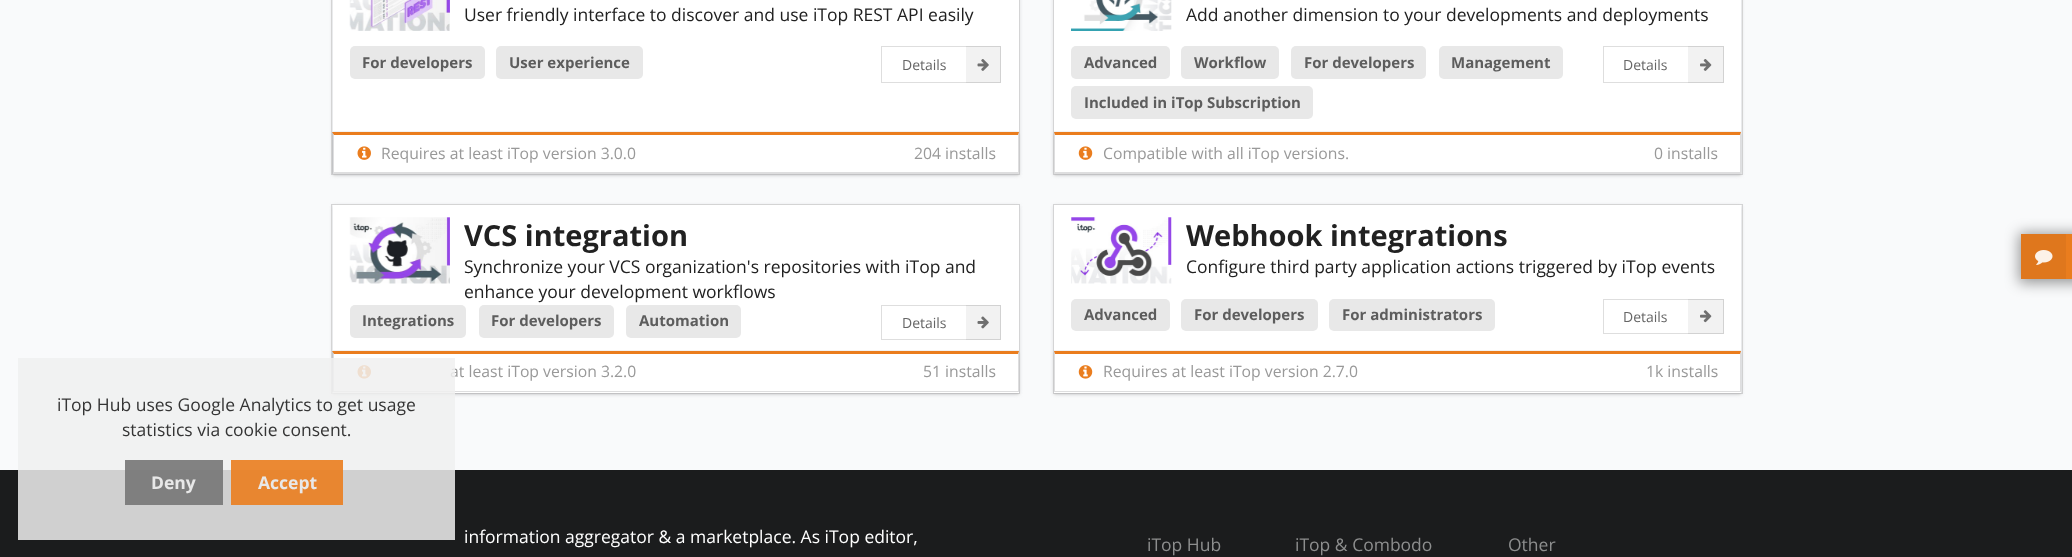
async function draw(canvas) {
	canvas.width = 2072;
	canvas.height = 557;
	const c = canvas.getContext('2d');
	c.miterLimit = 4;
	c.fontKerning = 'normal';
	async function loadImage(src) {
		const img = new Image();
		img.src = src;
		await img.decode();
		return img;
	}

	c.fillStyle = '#f9fafb';
	c.fillRect(0, 0, 2072, 557);
	c.strokeStyle = '#d4d4d5';
	c.strokeRect(331.5, -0.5, 688, 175);
	c.fillStyle = '#d4d4d5';
	c.filter = 'blur(2px)';
	c.beginPath();
	c.rect(333, -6, 686, 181);
	c.fill();
	c.filter = 'none';
	c.fillStyle = '#fff';
	c.fillRect(333, 0, 686, 133);
	c.drawImage(await loadImage('img1.png'), 349, 0, 101, 31);
	c.font = '17.5px Open Sans';
	c.fillStyle = '#212121';
	c.fillText('User friendly interface to discover and use iTop REST API easily', 464, 21);
	c.fillStyle = '#e8e8e8';
	c.beginPath();
	c.roundRect(350, 46, 135, 33, 5);
	c.fill();
	c.font = 'bold 15px Open Sans';
	c.fillStyle = '#5d5d5d';
	c.fillText('For developers', 362, 68);
	c.fillStyle = '#e8e8e8';
	c.beginPath();
	c.roundRect(496, 46, 147, 33, 5);
	c.fill();
	c.fillStyle = '#5d5d5d';
	c.fillText('User experience', 509, 68);
	c.strokeStyle = '#dedede';
	c.strokeRect(881.5, 46.5, 119, 36);
	c.font = '14px Open Sans';
	c.fillStyle = '#666';
	c.fillText('Details', 902, 70);
	c.fillStyle = '#0000000d';
	c.fillRect(966, 46, 35, 37);
	c.drawImage(await loadImage('img2.png'), 977, 59, 12, 12);
	c.fillStyle = '#f2f2f2';
	c.fillRect(333, 131, 686, 1);
	c.fillStyle = '#22242626';
	c.filter = 'blur(1px)';
	c.beginPath();
	c.rect(333, 134, 686, 41);
	c.fill();
	c.filter = 'none';
	c.fillStyle = '#fff';
	c.fillRect(333, 133, 686, 41);
	c.fillStyle = '#ea7d1e';
	c.beginPath();
	c.moveTo(332, 132);
	c.lineTo(1019, 132);
	c.lineTo(1018, 135);
	c.lineTo(334, 135);
	c.closePath();
	c.fill();
	c.fillStyle = '#22242626';
	c.beginPath();
	c.moveTo(1019, 132);
	c.lineTo(1019, 174);
	c.lineTo(1018, 172);
	c.lineTo(1018, 135);
	c.closePath();
	c.fill();
	c.beginPath();
	c.moveTo(1019, 174);
	c.lineTo(332, 174);
	c.lineTo(334, 172);
	c.lineTo(1018, 172);
	c.closePath();
	c.fill();
	c.beginPath();
	c.moveTo(332, 174);
	c.lineTo(332, 132);
	c.lineTo(334, 135);
	c.lineTo(334, 172);
	c.closePath();
	c.fill();
	c.drawImage(await loadImage('img3.png'), 357, 146, 14, 14);
	c.font = '15.75px Open Sans';
	c.fillStyle = '#999';
	c.fillText('Requires at least iTop version 3.0.0', 381, 159);
	c.fillText('204 installs', 914, 159);
	c.strokeStyle = '#d4d4d5';
	c.strokeRect(1053.5, -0.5, 689, 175);
	c.fillStyle = '#d4d4d5';
	c.filter = 'blur(2px)';
	c.beginPath();
	c.rect(1054, -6, 687, 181);
	c.fill();
	c.filter = 'none';
	c.fillStyle = '#fff';
	c.fillRect(1054, 0, 687, 133);
	c.drawImage(await loadImage('img4.png'), 1071, 0, 101, 31);
	c.font = '17.5px Open Sans';
	c.fillStyle = '#212121';
	c.fillText('Add another dimension to your developments and deployments', 1186, 21);
	c.fillStyle = '#e8e8e8';
	c.beginPath();
	c.roundRect(1071, 46, 99, 33, 5);
	c.fill();
	c.font = 'bold 15px Open Sans';
	c.fillStyle = '#5d5d5d';
	c.fillText('Advanced', 1084, 68);
	c.fillStyle = '#e8e8e8';
	c.beginPath();
	c.roundRect(1181, 46, 98, 33, 5);
	c.fill();
	c.fillStyle = '#5d5d5d';
	c.fillText('Workflow', 1194, 68);
	c.fillStyle = '#e8e8e8';
	c.beginPath();
	c.roundRect(1291, 46, 135, 33, 5);
	c.fill();
	c.fillStyle = '#5d5d5d';
	c.fillText('For developers', 1304, 68);
	c.fillStyle = '#e8e8e8';
	c.beginPath();
	c.roundRect(1439, 46, 124, 33, 5);
	c.fill();
	c.fillStyle = '#5d5d5d';
	c.fillText('Management', 1451, 68);
	c.strokeStyle = '#dedede';
	c.strokeRect(1603.5, 46.5, 120, 36);
	c.font = '14px Open Sans';
	c.fillStyle = '#666';
	c.fillText('Details', 1623, 70);
	c.fillStyle = '#0000000d';
	c.fillRect(1688, 46, 36, 37);
	c.drawImage(await loadImage('img5.png'), 1700, 59, 12, 12);
	c.fillStyle = '#e8e8e8';
	c.beginPath();
	c.roundRect(1071, 86, 242, 33, 5);
	c.fill();
	c.font = 'bold 15px Open Sans';
	c.fillStyle = '#5d5d5d';
	c.fillText('Included in iTop Subscription', 1084, 108);
	c.fillStyle = '#f2f2f2';
	c.fillRect(1054, 131, 687, 1);
	c.fillStyle = '#22242626';
	c.filter = 'blur(1px)';
	c.beginPath();
	c.rect(1054, 134, 687, 41);
	c.fill();
	c.filter = 'none';
	c.fillStyle = '#fff';
	c.fillRect(1054, 133, 687, 41);
	c.fillStyle = '#ea7d1e';
	c.beginPath();
	c.moveTo(1054, 132);
	c.lineTo(1741, 132);
	c.lineTo(1740, 135);
	c.lineTo(1055, 135);
	c.closePath();
	c.fill();
	c.fillStyle = '#22242626';
	c.beginPath();
	c.moveTo(1741, 132);
	c.lineTo(1741, 174);
	c.lineTo(1740, 172);
	c.lineTo(1740, 135);
	c.closePath();
	c.fill();
	c.beginPath();
	c.moveTo(1741, 174);
	c.lineTo(1054, 174);
	c.lineTo(1055, 172);
	c.lineTo(1740, 172);
	c.closePath();
	c.fill();
	c.beginPath();
	c.moveTo(1054, 174);
	c.lineTo(1054, 132);
	c.lineTo(1055, 135);
	c.lineTo(1055, 172);
	c.closePath();
	c.fill();
	c.drawImage(await loadImage('img6.png'), 1078, 146, 15, 14);
	c.font = '15.75px Open Sans';
	c.fillStyle = '#999';
	c.fillText('Compatible with all iTop versions.', 1103, 159);
	c.fillText('0 installs', 1654, 159);
	c.strokeStyle = '#d4d4d5';
	c.strokeRect(331.5, 204.5, 688, 189);
	c.fillStyle = '#d4d4d5';
	c.filter = 'blur(2px)';
	c.beginPath();
	c.rect(333, 206, 686, 188);
	c.fill();
	c.filter = 'none';
	c.fillStyle = '#fff';
	c.fillRect(333, 205, 686, 145);
	c.drawImage(await loadImage('img7.png'), 349, 217, 101, 67);
	c.font = 'bold 29px Open Sans';
	c.fillStyle = '#212121';
	c.fillText('VCS integration', 464, 246);
	c.font = '17.5px Open Sans';
	c.fillText('Synchronize your VCS organization\'s repositories with iTop and', 464, 273);
	c.fillText('enhance your development workflows', 464, 298);
	c.fillStyle = '#e8e8e8';
	c.beginPath();
	c.roundRect(350, 305, 116, 33, 5);
	c.fill();
	c.font = 'bold 15px Open Sans';
	c.fillStyle = '#5d5d5d';
	c.fillText('Integrations', 362, 326);
	c.fillStyle = '#e8e8e8';
	c.beginPath();
	c.roundRect(479, 305, 135, 33, 5);
	c.fill();
	c.fillStyle = '#5d5d5d';
	c.fillText('For developers', 491, 326);
	c.fillStyle = '#e8e8e8';
	c.beginPath();
	c.roundRect(626, 305, 115, 33, 5);
	c.fill();
	c.fillStyle = '#5d5d5d';
	c.fillText('Automation', 639, 326);
	c.strokeStyle = '#dedede';
	c.strokeRect(881.5, 305.5, 119, 34);
	c.font = '14px Open Sans';
	c.fillStyle = '#666';
	c.fillText('Details', 902, 328);
	c.fillStyle = '#0000000d';
	c.fillRect(966, 305, 35, 35);
	c.drawImage(await loadImage('img8.png'), 977, 316, 12, 13);
	c.fillStyle = '#f2f2f2';
	c.fillRect(333, 350, 686, 1);
	c.fillStyle = '#22242626';
	c.filter = 'blur(1px)';
	c.beginPath();
	c.rect(333, 353, 686, 41);
	c.fill();
	c.filter = 'none';
	c.fillStyle = '#fff';
	c.fillRect(333, 351, 686, 42);
	c.fillStyle = '#ea7d1e';
	c.beginPath();
	c.moveTo(332, 351);
	c.lineTo(1019, 351);
	c.lineTo(1018, 354);
	c.lineTo(334, 354);
	c.closePath();
	c.fill();
	c.fillStyle = '#22242626';
	c.beginPath();
	c.moveTo(1019, 351);
	c.lineTo(1019, 392);
	c.lineTo(1018, 391);
	c.lineTo(1018, 354);
	c.closePath();
	c.fill();
	c.beginPath();
	c.moveTo(1019, 392);
	c.lineTo(332, 392);
	c.lineTo(334, 391);
	c.lineTo(1018, 391);
	c.closePath();
	c.fill();
	c.beginPath();
	c.moveTo(332, 392);
	c.lineTo(332, 351);
	c.lineTo(334, 354);
	c.lineTo(334, 391);
	c.closePath();
	c.fill();
	c.drawImage(await loadImage('img9.png'), 357, 365, 14, 14);
	c.font = '15.75px Open Sans';
	c.fillStyle = '#999';
	c.fillText('at least iTop version 3.2.0', 450, 377);
	c.fillText('51 installs', 923, 377);
	c.strokeStyle = '#d4d4d5';
	c.strokeRect(1053.5, 204.5, 689, 189);
	c.fillStyle = '#d4d4d5';
	c.filter = 'blur(2px)';
	c.beginPath();
	c.rect(1054, 206, 687, 188);
	c.fill();
	c.filter = 'none';
	c.fillStyle = '#fff';
	c.fillRect(1054, 205, 687, 145);
	c.drawImage(await loadImage('img10.png'), 1071, 217, 101, 67);
	c.font = 'bold 29px Open Sans';
	c.fillStyle = '#212121';
	c.fillText('Webhook integrations', 1186, 246);
	c.font = '17.5px Open Sans';
	c.fillText('Configure third party application actions triggered by iTop events', 1186, 273);
	c.fillStyle = '#e8e8e8';
	c.beginPath();
	c.roundRect(1071, 299, 99, 32, 5);
	c.fill();
	c.font = 'bold 15px Open Sans';
	c.fillStyle = '#5d5d5d';
	c.fillText('Advanced', 1084, 320);
	c.fillStyle = '#e8e8e8';
	c.beginPath();
	c.roundRect(1181, 299, 137, 32, 5);
	c.fill();
	c.fillStyle = '#5d5d5d';
	c.fillText('For developers', 1194, 320);
	c.fillStyle = '#e8e8e8';
	c.beginPath();
	c.roundRect(1329, 299, 166, 32, 5);
	c.fill();
	c.fillStyle = '#5d5d5d';
	c.fillText('For administrators', 1342, 320);
	c.strokeStyle = '#dedede';
	c.strokeRect(1603.5, 299.5, 120, 34);
	c.font = '14px Open Sans';
	c.fillStyle = '#666';
	c.fillText('Details', 1623, 322);
	c.fillStyle = '#0000000d';
	c.fillRect(1688, 299, 36, 35);
	c.drawImage(await loadImage('img11.png'), 1700, 310, 12, 13);
	c.fillStyle = '#f2f2f2';
	c.fillRect(1054, 350, 687, 1);
	c.fillStyle = '#22242626';
	c.filter = 'blur(1px)';
	c.beginPath();
	c.rect(1054, 353, 687, 41);
	c.fill();
	c.filter = 'none';
	c.fillStyle = '#fff';
	c.fillRect(1054, 351, 687, 42);
	c.fillStyle = '#ea7d1e';
	c.beginPath();
	c.moveTo(1054, 351);
	c.lineTo(1741, 351);
	c.lineTo(1740, 354);
	c.lineTo(1055, 354);
	c.closePath();
	c.fill();
	c.fillStyle = '#22242626';
	c.beginPath();
	c.moveTo(1741, 351);
	c.lineTo(1741, 392);
	c.lineTo(1740, 391);
	c.lineTo(1740, 354);
	c.closePath();
	c.fill();
	c.beginPath();
	c.moveTo(1741, 392);
	c.lineTo(1054, 392);
	c.lineTo(1055, 391);
	c.lineTo(1740, 391);
	c.closePath();
	c.fill();
	c.beginPath();
	c.moveTo(1054, 392);
	c.lineTo(1054, 351);
	c.lineTo(1055, 354);
	c.lineTo(1055, 391);
	c.closePath();
	c.fill();
	c.drawImage(await loadImage('img12.png'), 1078, 365, 15, 14);
	c.font = '15.75px Open Sans';
	c.fillStyle = '#999';
	c.fillText('Requires at least iTop version 2.7.0', 1103, 377);
	c.fillText('1k installs', 1646, 377);
	c.fillStyle = '#00000066';
	c.filter = 'blur(7px)';
	c.beginPath();
	c.rect(2019, 233, 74, 50);
	c.fill();
	c.filter = 'none';
	c.fillStyle = '#ea7d1e';
	c.fillRect(2066, 234, 6, 45);
	c.fillStyle = '#df771d';
	c.fillRect(2021, 234, 45, 45);
	c.drawImage(await loadImage('img13.png'), 2035, 250, 18, 15);
	c.fillStyle = '#1b1c1d';
	c.fillRect(0, 470, 2072, 87);
	c.fillStyle = '#f0f0f0d9';
	c.fillRect(18, 358, 437, 182);
	c.font = '17.5px Open Sans';
	c.fillStyle = '#353535';
	c.fillText('iTop Hub uses Google Analytics to get usage', 57, 411);
	c.fillText('statistics via cookie consent.', 122, 436);
	c.fillStyle = '#767676e6';
	c.fillRect(125, 460, 98, 45);
	c.font = 'bold 17.5px Open Sans';
	c.fillStyle = '#e8e8e8';
	c.fillText('Deny', 151, 489);
	c.fillStyle = '#ea7d1ee6';
	c.fillRect(231, 460, 112, 45);
	c.fillStyle = '#e8e8e8';
	c.fillText('Accept', 258, 489);
	c.font = '17.5px Open Sans';
	c.fillStyle = '#fff';
	c.fillText('information aggregator & a marketplace. As iTop editor,', 464, 543);
	c.fillStyle = '#8d8e8e';
	for (const [text, x, y] of [
		['iTop Hub', 1147, 551],
		['iTop & Combodo', 1295, 551],
		['Other', 1508, 551],
	]) {
		c.fillText(text, x, y);
	}
}

draw(document.querySelector('canvas'));
